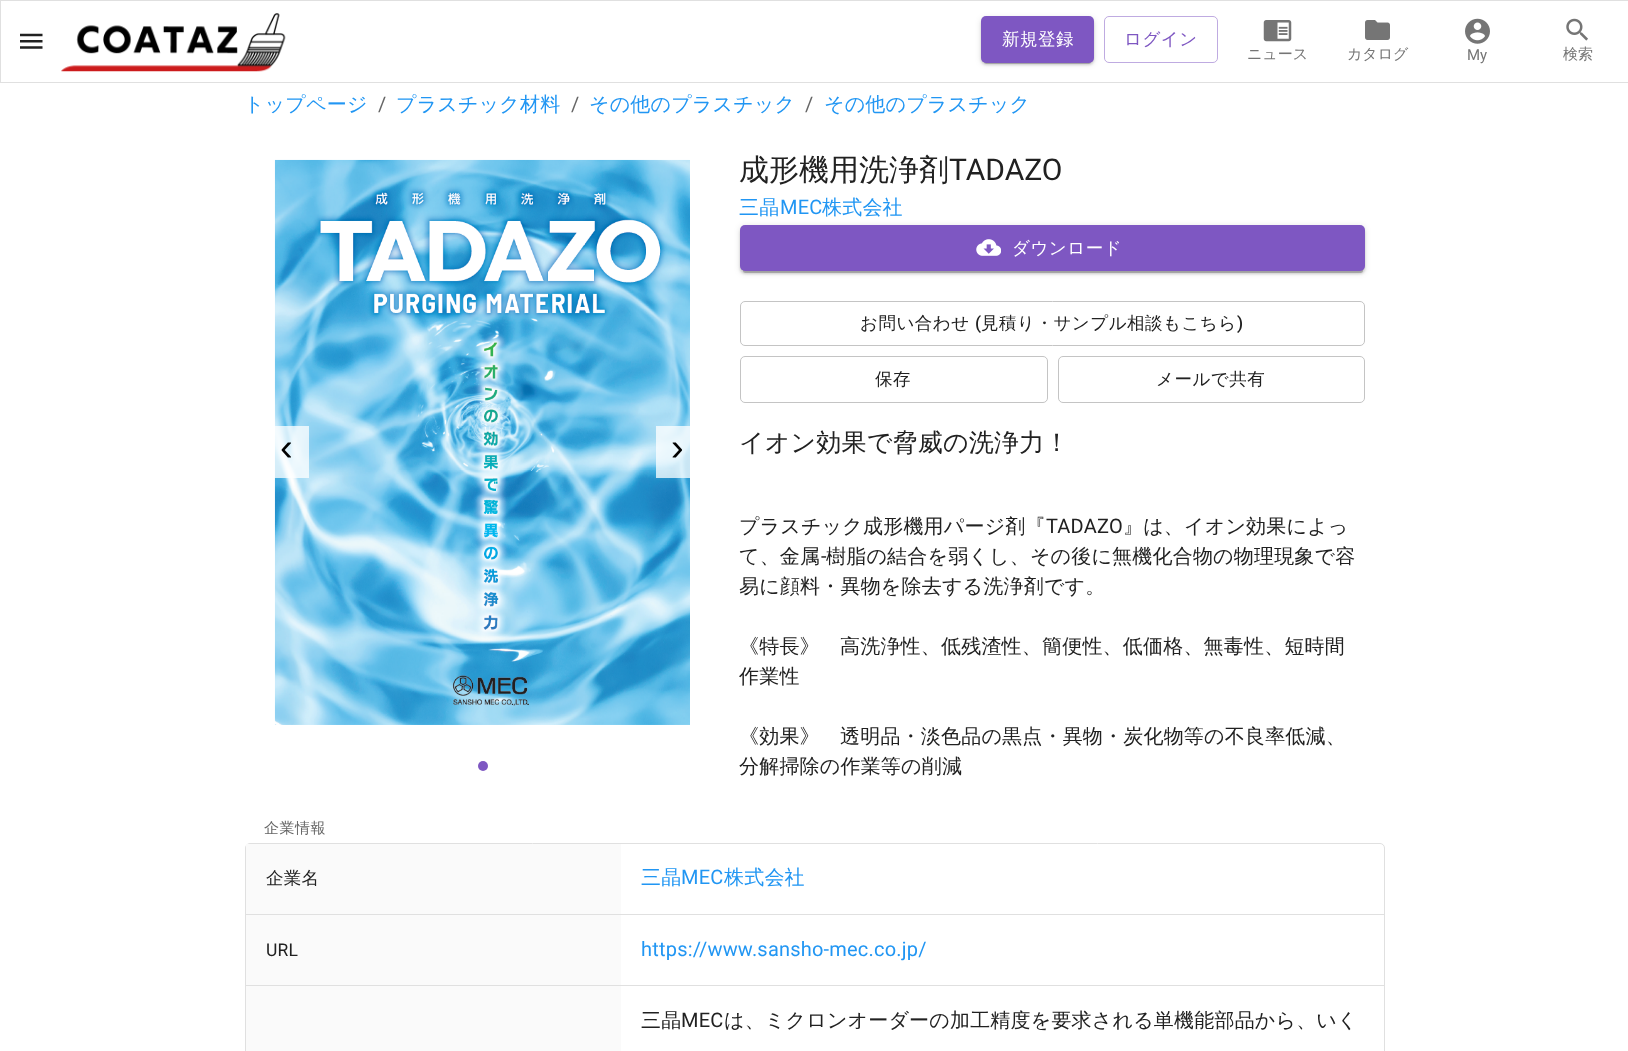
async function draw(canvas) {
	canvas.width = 1628;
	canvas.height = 1051;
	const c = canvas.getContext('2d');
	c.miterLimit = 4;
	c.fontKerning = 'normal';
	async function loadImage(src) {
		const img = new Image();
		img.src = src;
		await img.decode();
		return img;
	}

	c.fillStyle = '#fff';
	c.fillRect(0, 0, 1628, 1051);
	c.strokeStyle = '#e0e0e0';
	c.strokeRect(0.5, 0.5, 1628, 82);
	c.drawImage(await loadImage('img1.png'), 20, 33, 23, 16);
	c.drawImage(await loadImage('img2.png'), 61, 13, 225, 59);
	c.fillStyle = '#0000001f';
	c.filter = 'blur(3px)';
	c.beginPath();
	c.roundRect(981, 18, 113, 46, 5);
	c.fill();
	c.filter = 'none';
	c.fillStyle = '#00000024';
	c.filter = 'blur(1px)';
	c.beginPath();
	c.roundRect(981, 19, 113, 46, 5);
	c.fill();
	c.filter = 'none';
	c.fillStyle = '#00000033';
	c.filter = 'blur(0.5px)';
	c.beginPath();
	c.roundRect(984, 23, 107, 41, 2.5);
	c.fill();
	c.filter = 'none';
	c.fillStyle = '#7e57c2';
	c.beginPath();
	c.roundRect(981, 16, 113, 47, 5);
	c.fill();
	c.letterSpacing = '0.5px';
	c.font = '500 17.5px WenQuanYi Zen Hei';
	c.fillStyle = '#fff';
	c.fillText('新規登録', 1002, 45);
	c.beginPath();
	c.roundRect(1104.5, 16.5, 113, 46, 4.5);
	c.strokeStyle = '#bfabe1';
	c.stroke();
	c.fillStyle = '#7e57c2';
	c.fillText('ログイン', 1124, 45);
	c.drawImage(await loadImage('img3.png'), 1263, 20, 29, 22);
	c.letterSpacing = '0px';
	c.font = '500 15px WenQuanYi Zen Hei';
	c.fillStyle = '#757575';
	c.fillText('ニュース', 1247, 59);
	c.drawImage(await loadImage('img4.png'), 1365, 20, 25, 20);
	c.fillText('カタログ', 1347, 59);
	c.drawImage(await loadImage('img5.png'), 1465, 18, 25, 26);
	c.font = '15px Roboto';
	c.fillText('My', 1467, 60);
	c.drawImage(await loadImage('img6.png'), 1566, 18, 22, 23);
	c.font = '500 15px WenQuanYi Zen Hei';
	c.fillText('検索', 1563, 59);
	c.letterSpacing = '0.2px';
	c.font = '500 20px WenQuanYi Zen Hei';
	c.fillStyle = '#2196f3';
	c.fillText('トップページ', 244, 111);
	c.font = '20px Roboto';
	c.fillStyle = '#666';
	c.fillText('/', 378, 111);
	c.font = '500 20px WenQuanYi Zen Hei';
	c.fillStyle = '#2196f3';
	c.fillText('プラスチック材料', 396, 111);
	c.font = '20px Roboto';
	c.fillStyle = '#666';
	c.fillText('/', 571, 111);
	c.font = '500 20px WenQuanYi Zen Hei';
	c.fillStyle = '#2196f3';
	c.fillText('その他のプラスチック', 589, 111);
	c.font = '20px Roboto';
	c.fillStyle = '#666';
	c.fillText('/', 805, 111);
	c.font = '500 20px WenQuanYi Zen Hei';
	c.fillStyle = '#2196f3';
	c.fillText('その他のプラスチック', 824, 111);
	c.drawImage(await loadImage('img7.png'), 274, 159, 416, 566);
	c.fillStyle = '#ffffffbf';
	c.fillRect(274, 426, 35, 52);
	c.letterSpacing = '0px';
	c.font = '38px Liberation Sans';
	c.fillStyle = '#000';
	c.fillText('‹', 280, 460);
	c.fillStyle = '#ffffffbf';
	c.fillRect(656, 426, 34, 52);
	c.fillStyle = '#000';
	c.fillText('›', 671, 460);
	c.fillStyle = '#7e57c2';
	c.beginPath();
	c.arc(483, 766, 5, 0, 2 * Math.PI);
	c.fill();
	c.font = '500 30px WenQuanYi Zen Hei';
	c.fillStyle = '#212121';
	c.fillText('成形機用洗浄剤', 739, 180);
	c.font = '30px Roboto';
	c.fillText('TADAZO', 949, 180);
	c.letterSpacing = '0.2px';
	c.font = '500 20px WenQuanYi Zen Hei';
	c.fillStyle = '#2196f3';
	c.fillText('三晶', 739, 214);
	c.font = '20px Roboto';
	c.fillText('MEC', 780, 214);
	c.font = '500 20px WenQuanYi Zen Hei';
	c.fillText('株式会社', 822, 214);
	c.fillStyle = '#0000001f';
	c.filter = 'blur(3px)';
	c.beginPath();
	c.roundRect(740, 226, 625, 47, 5);
	c.fill();
	c.filter = 'none';
	c.fillStyle = '#00000024';
	c.filter = 'blur(1px)';
	c.beginPath();
	c.roundRect(740, 228, 625, 46, 5);
	c.fill();
	c.filter = 'none';
	c.fillStyle = '#00000033';
	c.filter = 'blur(0.5px)';
	c.beginPath();
	c.roundRect(743, 231, 620, 42, 2.5);
	c.fill();
	c.filter = 'none';
	c.fillStyle = '#7e57c2';
	c.beginPath();
	c.roundRect(740, 225, 625, 46, 5);
	c.fill();
	c.drawImage(await loadImage('img8.png'), 976, 239, 25, 17);
	c.letterSpacing = '0.5px';
	c.font = '500 17.5px WenQuanYi Zen Hei';
	c.fillStyle = '#fff';
	c.fillText('ダウンロード', 1012, 254);
	c.beginPath();
	c.roundRect(740.5, 301.5, 624, 44, 4.5);
	c.strokeStyle = '#c4c4c4';
	c.stroke();
	c.fillStyle = '#212121';
	c.fillText('お問い合わせ', 860, 329);
	c.font = '500 17.5px Roboto';
	c.fillText('(', 975, 329);
	c.font = '500 17.5px WenQuanYi Zen Hei';
	c.fillText('見積り・サンプル相談もこちら', 981, 329);
	c.font = '500 17.5px Roboto';
	c.fillText(')', 1237, 329);
	c.beginPath();
	c.roundRect(740.5, 356.5, 307, 46, 4.5);
	c.stroke();
	c.font = '500 17.5px WenQuanYi Zen Hei';
	c.fillText('保存', 875, 385);
	c.beginPath();
	c.roundRect(1058.5, 356.5, 306, 46, 4.5);
	c.stroke();
	c.fillText('メールで共有', 1156, 385);
	c.letterSpacing = '0.2px';
	c.font = '500 25px WenQuanYi Zen Hei';
	c.fillText('イオン効果で脅威の洗浄力！', 739, 451);
	c.font = '500 20px WenQuanYi Zen Hei';
	c.fillText('プラスチック成形機用パージ剤『', 739, 533);
	c.font = '20px Roboto';
	c.fillText('TADAZO', 1046, 533);
	c.font = '500 20px WenQuanYi Zen Hei';
	c.fillText('』は、イオン効果によっ', 1123, 533);
	c.fillText('て、金属', 739, 563);
	c.font = '20px Roboto';
	c.fillText('-', 821, 563);
	c.font = '500 20px WenQuanYi Zen Hei';
	for (const [text, x, y] of [
		['樹脂の結合を弱くし、その後に無機化合物の物理現象で容', 826, 563],
		['易に顔料・異物を除去する洗浄剤です。', 739, 593],
		['《特長》　高洗浄性、低残渣性、簡便性、低価格、無毒性、短時間', 739, 653],
		['作業性', 739, 683],
		['《効果》　透明品・淡色品の黒点・異物・炭化物等の不良率低減、', 739, 743],
		['分解掃除の作業等の削減', 739, 773],
	]) {
		c.fillText(text, x, y);
	}
	c.letterSpacing = '0.5px';
	c.font = '500 15px WenQuanYi Zen Hei';
	c.fillStyle = '#666';
	c.fillText('企業情報', 264, 833);
	c.beginPath();
	c.roundRect(245.5, 843.5, 1139, 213, 4.5);
	c.strokeStyle = '#e0e0e0';
	c.stroke();
	c.fillStyle = '#fafafa';
	c.fillRect(246, 844, 375, 70);
	c.letterSpacing = '0.2px';
	c.font = '500 17.5px WenQuanYi Zen Hei';
	c.fillStyle = '#212121';
	c.fillText('企業名', 266, 884);
	c.fillStyle = '#e0e0e0';
	c.fillRect(245, 914, 1139, 1);
	c.font = '500 20px WenQuanYi Zen Hei';
	c.fillStyle = '#2196f3';
	c.fillText('三晶', 641, 884);
	c.font = '20px Roboto';
	c.fillText('MEC', 681, 884);
	c.font = '500 20px WenQuanYi Zen Hei';
	c.fillText('株式会社', 724, 884);
	c.fillStyle = '#fafafa';
	c.fillRect(246, 915, 375, 70);
	c.font = '17.5px Roboto';
	c.fillStyle = '#212121';
	c.fillText('URL', 266, 956);
	c.fillStyle = '#e0e0e0';
	c.fillRect(245, 985, 1139, 1);
	c.font = '20px Roboto';
	c.fillStyle = '#2196f3';
	c.fillText('https://www.sansho-mec.co.jp/', 641, 956);
	c.fillStyle = '#fafafa';
	c.fillRect(246, 986, 375, 65);
	c.font = '500 20px WenQuanYi Zen Hei';
	c.fillStyle = '#212121';
	c.fillText('三晶', 641, 1027);
	c.font = '20px Roboto';
	c.fillText('MEC', 681, 1027);
	c.font = '500 20px WenQuanYi Zen Hei';
	c.fillText('は、ミクロンオーダーの加工精度を要求される単機能部品から、いく', 724, 1027);
}

draw(document.querySelector('canvas'));
